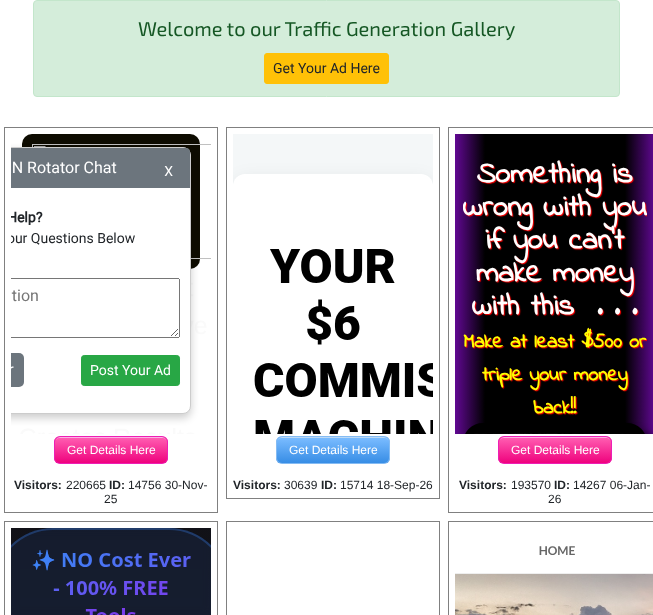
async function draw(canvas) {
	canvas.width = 653;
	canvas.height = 615;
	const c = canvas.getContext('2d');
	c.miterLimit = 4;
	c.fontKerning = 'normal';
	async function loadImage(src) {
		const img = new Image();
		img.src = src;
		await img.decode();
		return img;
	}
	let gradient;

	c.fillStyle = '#fff';
	c.fillRect(0, 0, 653, 615);
	c.fillStyle = '#d4edda';
	c.beginPath();
	c.roundRect(33.5, 0.5, 586, 96, 3.5);
	c.fill();
	c.strokeStyle = '#c3e6cb';
	c.stroke();
	c.font = '20px "Exo 2"';
	c.fillStyle = '#155724';
	c.fillText('Welcome to our Traffic Generation Gallery', 138, 36);
	c.fillStyle = '#ffc107';
	c.beginPath();
	c.roundRect(264.5, 53.5, 124, 30, 2.5);
	c.fill();
	c.strokeStyle = '#ffc107';
	c.stroke();
	c.font = '14px Roboto';
	c.fillStyle = '#212529';
	c.fillText('Get Your Ad Here', 273, 73);
	for (const [x, y, w, h, color] of [
		[4, 127, 214, 1, '#808080'],
		[217, 127, 1, 386, '#808080'],
		[4, 512, 214, 1, '#808080'],
		[4, 127, 1, 386, '#808080'],
	]) {
		c.fillStyle = color;
		c.fillRect(x, y, w, h);
	}
	c.drawImage(await loadImage('img1.png'), 11, 134, 200, 300);
	c.save();
	c.beginPath();
	c.roundRect(54, 436, 114, 28, 6);
	c.clip();
	gradient = c.createLinearGradient(111, 437, 111, 463);
	gradient.addColorStop(0.05, '#ff5bb0');
	gradient.addColorStop(1, '#ef027d');
	c.fillStyle = gradient;
	c.fillRect(54, 437, 114, 26);
	c.restore();
	c.fillStyle = '#fbafe3';
	c.beginPath();
	c.moveTo(60, 438);
	c.lineTo(162, 438);
	c.bezierCurveTo(165, 438, 167, 440, 167, 443);
	c.bezierCurveTo(167, 433, 150, 437, 145, 437);
	c.lineTo(77, 437);
	c.bezierCurveTo(72, 437, 55, 433, 55, 443);
	c.bezierCurveTo(55, 440, 57, 438, 60, 438);
	c.closePath();
	c.fill();
	c.beginPath();
	c.roundRect(54.5, 436.5, 113, 27, 5.5);
	c.strokeStyle = '#ee1eb5';
	c.stroke();
	c.font = '12px Liberation Sans';
	c.fillStyle = '#fff';
	c.fillText('Get Details Here', 67, 454);
	c.font = 'bold 12px Liberation Sans';
	c.fillStyle = '#212529';
	c.fillText('Visitors:', 14, 489);
	c.font = '12px Liberation Sans';
	c.fillText('220665', 66, 489);
	c.font = 'bold 12px Liberation Sans';
	c.fillText('ID:', 109, 489);
	c.font = '12px Liberation Sans';
	c.fillText('14756 30-Nov-', 128, 489);
	c.fillText('25', 104, 503);
	for (const [x, y, w, h, color] of [
		[226, 127, 214, 1, '#808080'],
		[439, 127, 1, 372, '#808080'],
		[226, 498, 214, 1, '#808080'],
		[226, 127, 1, 372, '#808080'],
	]) {
		c.fillStyle = color;
		c.fillRect(x, y, w, h);
	}
	c.drawImage(await loadImage('img2.png'), 233, 134, 200, 300);
	c.save();
	c.beginPath();
	c.roundRect(276, 436, 114, 28, 6);
	c.clip();
	gradient = c.createLinearGradient(333, 437, 333, 463);
	gradient.addColorStop(0.05, '#79bbff');
	gradient.addColorStop(1, '#378de5');
	c.fillStyle = gradient;
	c.fillRect(276, 437, 114, 26);
	c.restore();
	c.fillStyle = '#bbdaf7';
	c.beginPath();
	c.moveTo(282, 438);
	c.lineTo(384, 438);
	c.bezierCurveTo(387, 438, 389, 440, 389, 443);
	c.bezierCurveTo(389, 433, 372, 437, 367, 437);
	c.lineTo(299, 437);
	c.bezierCurveTo(294, 437, 277, 433, 277, 443);
	c.bezierCurveTo(277, 440, 279, 438, 282, 438);
	c.closePath();
	c.fill();
	c.beginPath();
	c.roundRect(276.5, 436.5, 113, 27, 5.5);
	c.strokeStyle = '#84bbf3';
	c.stroke();
	c.fillStyle = '#fff';
	c.fillText('Get Details Here', 289, 454);
	c.font = 'bold 12px Liberation Sans';
	c.fillStyle = '#212529';
	c.fillText('Visitors:', 233, 489);
	c.font = '12px Liberation Sans';
	c.fillText('30639', 284, 489);
	c.font = 'bold 12px Liberation Sans';
	c.fillText('ID:', 321, 489);
	c.font = '12px Liberation Sans';
	c.fillText('15714 18-Sep-26', 340, 489);
	for (const [x, y, w, h, color] of [
		[448, 127, 205, 1, '#808080'],
		[448, 512, 205, 1, '#808080'],
		[448, 127, 1, 386, '#808080'],
	]) {
		c.fillStyle = color;
		c.fillRect(x, y, w, h);
	}
	c.drawImage(await loadImage('img3.png'), 455, 134, 198, 300);
	c.save();
	c.beginPath();
	c.roundRect(498, 436, 114, 28, 6);
	c.clip();
	gradient = c.createLinearGradient(555, 437, 555, 463);
	gradient.addColorStop(0.05, '#ff5bb0');
	gradient.addColorStop(1, '#ef027d');
	c.fillStyle = gradient;
	c.fillRect(498, 437, 114, 26);
	c.restore();
	c.fillStyle = '#fbafe3';
	c.beginPath();
	c.moveTo(504, 438);
	c.lineTo(606, 438);
	c.bezierCurveTo(609, 438, 611, 440, 611, 443);
	c.bezierCurveTo(611, 433, 594, 437, 589, 437);
	c.lineTo(521, 437);
	c.bezierCurveTo(516, 437, 499, 433, 499, 443);
	c.bezierCurveTo(499, 440, 501, 438, 504, 438);
	c.closePath();
	c.fill();
	c.beginPath();
	c.roundRect(498.5, 436.5, 113, 27, 5.5);
	c.strokeStyle = '#ee1eb5';
	c.stroke();
	c.fillStyle = '#fff';
	c.fillText('Get Details Here', 511, 454);
	c.font = 'bold 12px Liberation Sans';
	c.fillStyle = '#212529';
	c.fillText('Visitors:', 459, 489);
	c.font = '12px Liberation Sans';
	c.fillText('193570', 511, 489);
	c.font = 'bold 12px Liberation Sans';
	c.fillText('ID:', 554, 489);
	c.font = '12px Liberation Sans';
	c.fillText('14267 06-Jan-', 573, 489);
	c.fillText('26', 548, 503);
	for (const [x, y, w, h, color] of [
		[4, 521, 214, 1, '#808080'],
		[217, 521, 1, 94, '#808080'],
		[4, 521, 1, 94, '#808080'],
	]) {
		c.fillStyle = color;
		c.fillRect(x, y, w, h);
	}
	c.drawImage(await loadImage('img4.png'), 11, 528, 200, 87);
	for (const [x, y, w, h, color] of [
		[226, 521, 214, 1, '#808080'],
		[439, 521, 1, 94, '#808080'],
		[226, 521, 1, 94, '#808080'],
		[448, 521, 205, 1, '#808080'],
		[448, 521, 1, 94, '#808080'],
	]) {
		c.fillStyle = color;
		c.fillRect(x, y, w, h);
	}
	c.drawImage(await loadImage('img5.png'), 455, 546, 198, 69);
}

draw(document.querySelector('canvas'));
